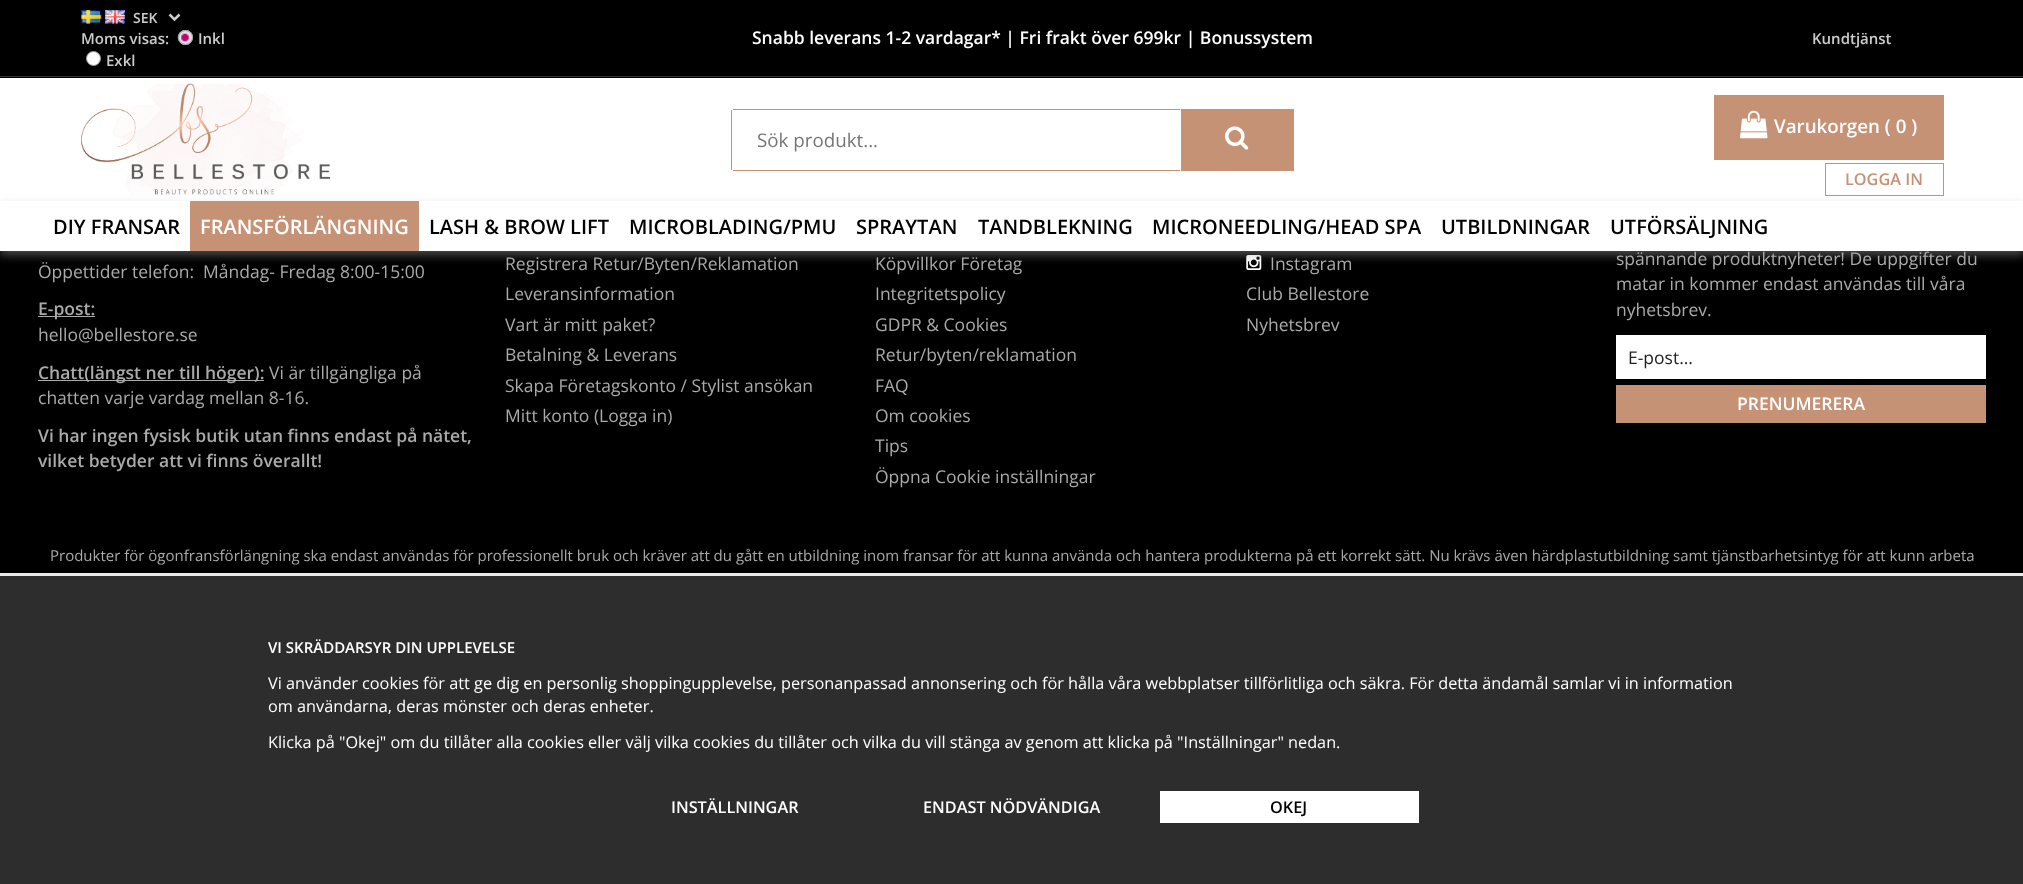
async function draw(canvas) {
	canvas.width = 2023;
	canvas.height = 884;
	const c = canvas.getContext('2d');
	c.miterLimit = 4;
	c.fontKerning = 'normal';
	async function loadImage(src) {
		const img = new Image();
		img.src = src;
		await img.decode();
		return img;
	}

	c.fillStyle = '#000';
	c.fillRect(0, 0, 2023, 884);
	c.fillStyle = '#fff';
	c.fillRect(0, 78, 2023, 123);
	c.fillStyle = '#333';
	c.fillRect(0, 76, 2023, 1);
	c.drawImage(await loadImage('img1.png'), 81, 10, 21, 14);
	c.drawImage(await loadImage('img2.png'), 105, 10, 20, 14);
	c.beginPath();
	c.moveTo(169.5, 14.5);
	c.lineTo(174.5, 19.5);
	c.lineTo(179.5, 14.5);
	c.strokeStyle = '#ccc';
	c.lineWidth = 2.5;
	c.stroke();
	c.font = '600 14px Open Sans';
	c.fillStyle = '#ccc';
	c.fillText('SEK', 133, 23);
	c.font = '600 15px Open Sans';
	c.fillText('Moms visas:', 81, 44);
	c.fillStyle = '#eee';
	c.beginPath();
	c.arc(185.5, 37.5, 7.5, 0, 2 * Math.PI);
	c.fill();
	c.drawImage(await loadImage('img3.png'), 177, 30, 16, 15);
	c.beginPath();
	c.arc(185.5, 37.5, 7, 0, 2 * Math.PI);
	c.strokeStyle = '#999';
	c.lineWidth = 1;
	c.stroke();
	c.fillStyle = '#ccc';
	c.fillText('Inkl', 198, 44);
	c.fillStyle = '#fff';
	c.beginPath();
	c.arc(93.5, 58.5, 7, 0, 2 * Math.PI);
	c.fill();
	c.stroke();
	c.fillStyle = '#ccc';
	c.fillText('Exkl', 106, 66);
	c.font = '600 17.5px Open Sans';
	c.fillStyle = '#fff';
	c.fillText('Snabb leverans 1-2 vardagar* | Fri frakt över 699kr | Bonussystem', 752, 44);
	c.font = '600 15px Open Sans';
	c.fillStyle = '#ccc';
	c.fillText('Kundtjänst', 1812, 44);
	c.drawImage(await loadImage('img4.png'), 81, 83, 249, 112);
	c.fillStyle = '#f3f2f2';
	c.fillRect(731, 109, 450, 62);
	c.fillStyle = '#fff';
	c.beginPath();
	c.roundRect(731, 109, 450, 62, 2.5);
	c.fill();
	for (const [x, y, w, h, color] of [
		[733, 109, 447, 1, '#c69276'],
		[733, 170, 447, 1, '#c69276'],
		[731, 110, 1, 60, '#c69276'],
	]) {
		c.fillStyle = color;
		c.fillRect(x, y, w, h);
	}
	c.font = '18.75px Open Sans';
	c.fillStyle = '#757575';
	c.fillText('Sök produkt...', 757, 147);
	c.fillStyle = '#c69276';
	c.fillRect(1181, 109, 113, 62);
	c.drawImage(await loadImage('img5.png'), 1225, 126, 24, 24);
	c.fillRect(1714, 95, 230, 65);
	c.drawImage(await loadImage('img6.png'), 1740, 110, 28, 29);
	c.font = '600 18.75px Open Sans';
	c.fillStyle = '#fff';
	c.fillText('Varukorgen ( 0 )', 1774, 133);
	c.strokeStyle = '#c69276';
	c.strokeRect(1825.5, 163.5, 118, 32);
	c.font = '600 16.25px Open Sans';
	c.fillStyle = '#c69276';
	c.fillText('LOGGA IN', 1845, 185);
	c.drawImage(await loadImage('img7.png'), 1246, 255, 16, 15);
	c.fillStyle = '#99999980';
	c.filter = 'blur(5px)';
	c.beginPath();
	c.rect(0, 205, 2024, 50);
	c.fill();
	c.filter = 'none';
	c.fillStyle = '#fff';
	c.fillRect(0, 201, 2023, 50);
	c.font = '600 20px Open Sans';
	c.fillStyle = '#000';
	c.fillText('DIY FRANSAR', 53, 234);
	c.fillStyle = '#c69276';
	c.fillRect(190, 201, 229, 50);
	c.fillStyle = '#fff';
	c.fillText('FRANSFÖRLÄNGNING', 200, 234);
	c.fillStyle = '#000';
	for (const [text, x, y] of [
		['LASH & BROW LIFT', 429, 234],
		['MICROBLADING/PMU', 629, 234],
		['SPRAYTAN', 856, 234],
		['TANDBLEKNING', 978, 234],
		['MICRONEEDLING/HEAD SPA', 1152, 234],
		['UTBILDNINGAR', 1441, 234],
		['UTFÖRSÄLJNING', 1610, 234],
	]) {
		c.fillText(text, x, y);
	}
	c.font = '17.5px Open Sans';
	c.fillStyle = '#aaa';
	c.fillText('Öppettider telefon:  Måndag- Fredag 8:00-15:00', 38, 278);
	c.fillRect(38, 316, 57, 1);
	c.font = '600 17.5px Open Sans';
	c.fillText('E-post:', 38, 315);
	c.font = '17.5px Open Sans';
	c.fillText('hello@bellestore.se', 38, 341);
	c.fillRect(38, 380, 226, 1);
	c.font = '600 17.5px Open Sans';
	c.fillText('Chatt(längst ner till höger):', 38, 379);
	c.font = '17.5px Open Sans';
	c.fillText('Vi är tillgängliga på', 269, 379);
	c.fillText('chatten varje vardag mellan 8-16.', 38, 404);
	c.font = '600 17.5px Open Sans';
	c.fillText('Vi har ingen fysisk butik utan finns endast på nätet,', 38, 442);
	c.fillText('vilket betyder att vi finns överallt!', 38, 467);
	c.font = '17.5px Open Sans';
	for (const [text, x, y] of [
		['Registrera Retur/Byten/Reklamation', 505, 270],
		['Leveransinformation', 505, 300],
		['Vart är mitt paket?', 505, 331],
		['Betalning & Leverans', 505, 361],
		['Skapa Företagskonto / Stylist ansökan', 505, 392],
		['Mitt konto (Logga in)', 505, 422],
		['Köpvillkor Företag', 875, 270],
		['Integritetspolicy', 875, 300],
		['GDPR & Cookies', 875, 331],
		['Retur/byten/reklamation', 875, 361],
		['FAQ', 875, 392],
		['Om cookies', 875, 422],
		['Tips', 875, 452],
		['Öppna Cookie inställningar', 875, 483],
		['Instagram', 1270, 270],
		['Club Bellestore', 1246, 300],
		['Nyhetsbrev', 1246, 331],
		['spännande produktnyheter! De uppgifter du', 1616, 265],
		['matar in kommer endast användas till våra', 1616, 290],
		['nyhetsbrev.', 1616, 316],
	]) {
		c.fillText(text, x, y);
	}
	c.fillStyle = '#fff';
	c.fillRect(1616, 335, 370, 44);
	c.fillStyle = '#222';
	c.fillText('E-post...', 1628, 364);
	c.fillStyle = '#c69276';
	c.fillRect(1616, 385, 370, 38);
	c.font = '600 17.5px Open Sans';
	c.fillStyle = '#fff';
	c.fillText('PRENUMERERA', 1737, 410);
	c.font = '15px Open Sans';
	c.fillStyle = '#aaa';
	c.fillText('Produkter för ögonfransförlängning ska endast användas för professionellt bruk och kräver att du gått en utbildning inom fransar för att kunna använda och hantera produkterna på ett korrekt sätt. Nu krävs även härdplastutbildning samt tjänstbarhetsintyg för att kunn arbeta', 50, 561);
	c.fillStyle = '#2d2d2d';
	c.fillRect(0, 576, 2023, 308);
	c.fillStyle = '#e9e9e9';
	c.fillRect(0, 573, 2023, 3);
	c.font = '600 15px Open Sans';
	c.fillStyle = '#fff';
	c.fillText('VI SKRÄDDARSYR DIN UPPLEVELSE', 268, 653);
	c.font = '16.25px Open Sans';
	for (const [text, x, y] of [
		['Vi använder cookies för att ge dig en personlig shoppingupplevelse, personanpassad annonsering och för hålla våra webbplatser tillförlitliga och säkra. För detta ändamål samlar vi in information', 268, 689],
		['om användarna, deras mönster och deras enheter.', 268, 712],
		['Klicka på "Okej" om du tillåter alla cookies eller välj vilka cookies du tillåter och vilka du vill stänga av genom att klicka på "Inställningar" nedan.', 268, 748],
	]) {
		c.fillText(text, x, y);
	}
	c.font = '600 16.25px Open Sans';
	c.fillText('INSTÄLLNINGAR', 671, 813);
	c.fillText('ENDAST NÖDVÄNDIGA', 923, 813);
	c.fillRect(1160, 791, 259, 32);
	c.fillStyle = '#000';
	c.fillText('OKEJ', 1270, 813);
}

draw(document.querySelector('canvas'));
